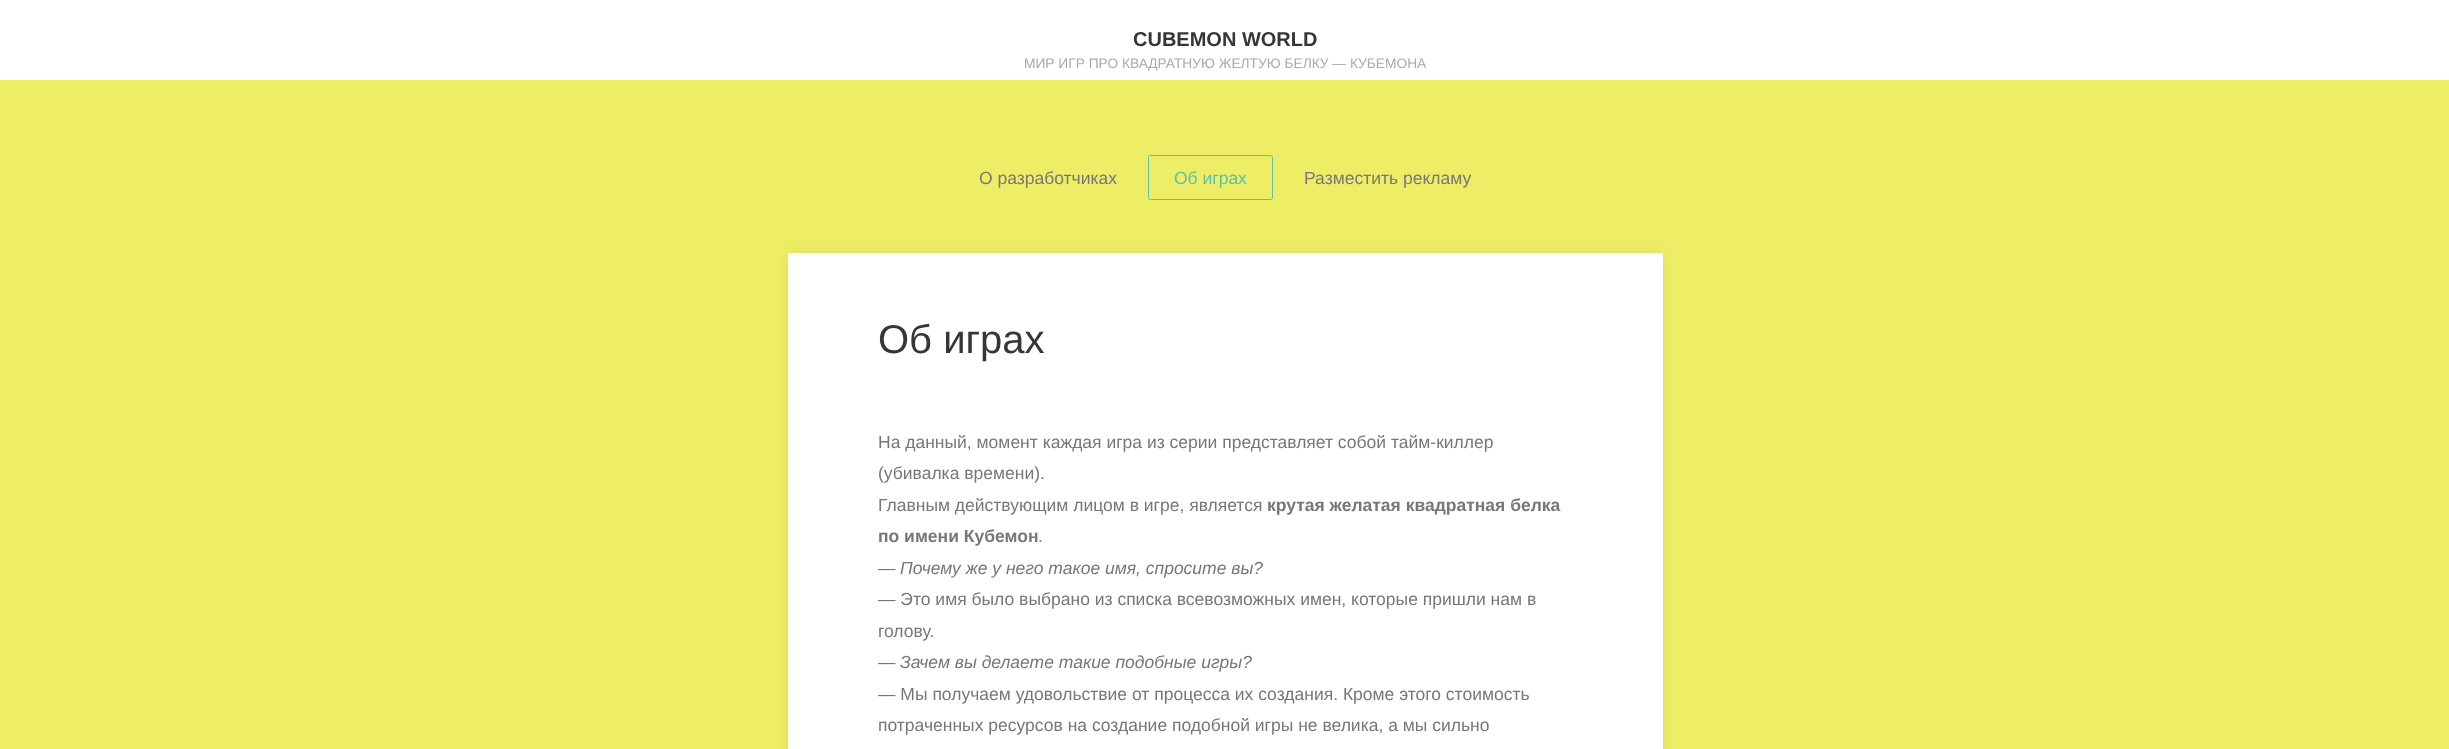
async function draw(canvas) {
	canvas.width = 2449;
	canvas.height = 749;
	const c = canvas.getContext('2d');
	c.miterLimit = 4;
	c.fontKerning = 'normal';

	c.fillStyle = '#fff';
	c.fillRect(0, 0, 2449, 749);
	c.font = 'bold 20px Liberation Sans';
	c.fillStyle = '#363636';
	c.fillText('CUBEMON WORLD', 1133, 46);
	c.font = '13.75px Liberation Sans';
	c.fillStyle = '#aaa';
	c.fillText('МИР ИГР ПРО КВАДРАТНУЮ ЖЕЛТУЮ БЕЛКУ — КУБЕМОНА', 1024, 68);
	c.fillStyle = '#ee6';
	c.fillRect(0, 80, 2449, 669);
	c.font = '17.5px Liberation Sans';
	c.fillStyle = '#777';
	c.fillText('О разработчиках', 979, 184);
	c.beginPath();
	c.roundRect(1148.5, 155.5, 124, 44, 2);
	c.strokeStyle = '#5cc1a9';
	c.stroke();
	c.fillStyle = '#5cc1a9';
	c.fillText('Об играх', 1174, 184);
	c.fillStyle = '#777';
	c.fillText('Разместить рекламу', 1304, 184);
	c.fillStyle = '#00000012';
	c.filter = 'blur(8px)';
	c.beginPath();
	c.rect(788, 253, 875, 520);
	c.fill();
	c.filter = 'none';
	c.fillStyle = '#fff';
	c.fillRect(788, 253, 875, 496);
	c.font = '40px Liberation Sans';
	c.fillStyle = '#363636';
	c.fillText('Об играх', 878, 353);
	c.font = '17.5px Liberation Sans';
	c.fillStyle = '#777';
	for (const [text, x, y] of [
		['На данный, момент каждая игра из серии представляет собой тайм-киллер', 878, 448],
		['(убивалка времени).', 878, 479],
		['Главным действующим лицом в игре, является', 878, 511],
	]) {
		c.fillText(text, x, y);
	}
	c.font = 'bold 17.5px Liberation Sans';
	c.fillText('крутая желатая квадратная белка', 1267, 511);
	c.fillText('по имени Кубемон', 878, 542);
	c.font = '17.5px Liberation Sans';
	c.fillText('.', 1038, 542);
	c.fillText('—', 878, 574);
	c.font = 'italic 17.5px Liberation Sans';
	c.fillText('Почему же у него такое имя, спросите вы?', 900, 574);
	c.font = '17.5px Liberation Sans';
	for (const [text, x, y] of [
		['— Это имя было выбрано из списка всевозможных имен, которые пришли нам в', 878, 605],
		['голову.', 878, 637],
		['—', 878, 668],
	]) {
		c.fillText(text, x, y);
	}
	c.font = 'italic 17.5px Liberation Sans';
	c.fillText('Зачем вы делаете такие подобные игры?', 900, 668);
	c.font = '17.5px Liberation Sans';
	c.fillText('— Мы получаем удовольствие от процесса их создания. Кроме этого стоимость', 878, 700);
	c.fillText('потраченных ресурсов на создание подобной игры не велика, а мы сильно', 878, 731);
}

draw(document.querySelector('canvas'));
